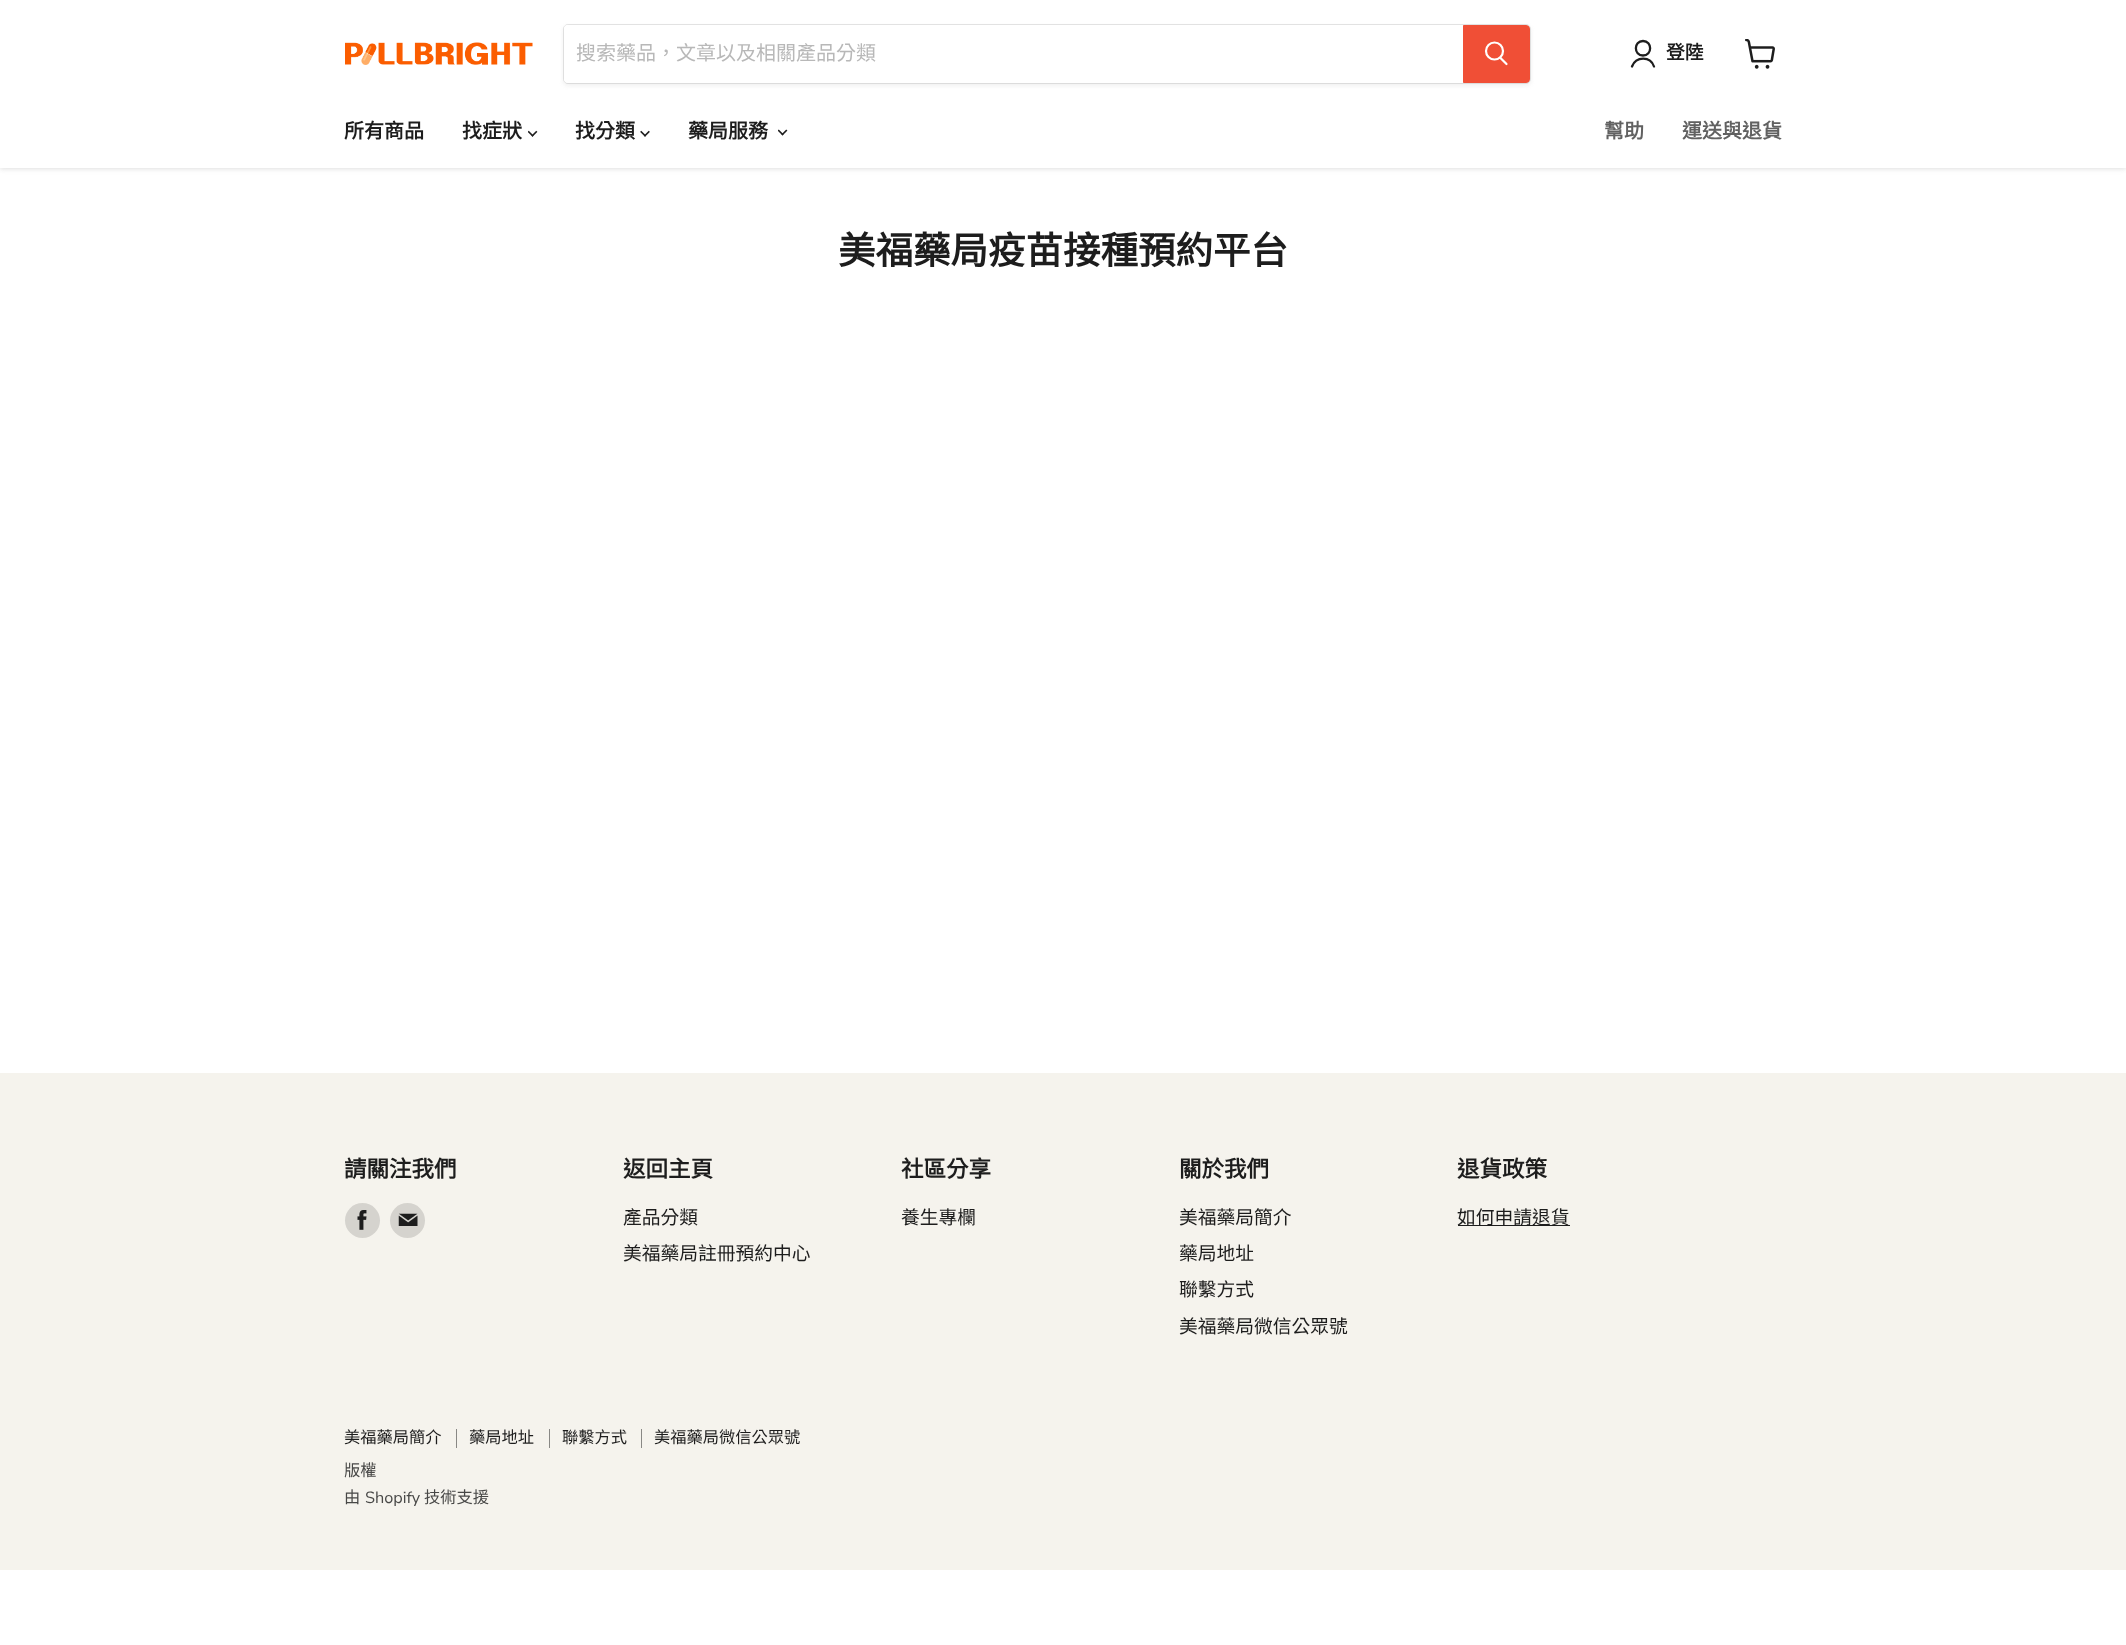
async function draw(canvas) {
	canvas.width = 2126;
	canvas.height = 1645;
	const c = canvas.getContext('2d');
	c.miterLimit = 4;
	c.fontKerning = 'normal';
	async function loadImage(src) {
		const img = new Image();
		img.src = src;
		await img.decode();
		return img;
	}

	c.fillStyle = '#fff';
	c.fillRect(0, 0, 2126, 1645);
	c.fillStyle = '#80808040';
	c.filter = 'blur(2.5px)';
	c.beginPath();
	c.rect(0, 1, 2126, 168);
	c.fill();
	c.filter = 'none';
	c.fillStyle = '#fff';
	c.fillRect(0, 0, 2126, 168);
	c.drawImage(await loadImage('img1.png'), 345, 42, 188, 23);
	c.fillStyle = '#8080801c';
	c.filter = 'blur(2px)';
	c.beginPath();
	c.roundRect(563, 26, 968, 60, 5);
	c.fill();
	c.filter = 'none';
	c.beginPath();
	c.roundRect(563.5, 24.5, 967, 59, 4.5);
	c.strokeStyle = '#80808033';
	c.stroke();
	c.fillStyle = '#fff';
	c.beginPath();
	c.roundRect(564, 25, 899, 58, [4, 0, 0, 4]);
	c.fill();
	c.font = '20px Noto Sans CJK TC';
	c.fillStyle = '#b8b8b8';
	c.fillText('搜索藥品，文章以及相關產品分類', 576, 60);
	c.fillStyle = '#f04f36';
	c.beginPath();
	c.roundRect(1463.5, 25.5, 66, 57, [0, 3.5, 3.5, 0]);
	c.fill();
	c.strokeStyle = '#f04f36';
	c.stroke();
	c.beginPath();
	c.moveTo(1506.5, 64);
	c.lineTo(1500.5, 58);
	c.strokeStyle = '#fff';
	c.lineWidth = 2.2;
	c.lineCap = 'round';
	c.stroke();
	c.beginPath();
	c.arc(1494.5, 51, 8.5, 0, 2 * Math.PI);
	c.stroke();
	c.beginPath();
	c.moveTo(1643, 55.5);
	c.bezierCurveTo(1652.5, 55.5, 1652.5, 41, 1643, 41);
	c.bezierCurveTo(1633.5, 41, 1633.5, 55.5, 1643, 55.5);
	c.closePath();
	c.moveTo(1654, 66.5);
	c.bezierCurveTo(1650.5, 56, 1636, 56, 1632, 66.5);
	c.strokeStyle = '#1d1d1d';
	c.lineWidth = 2.3;
	c.lineJoin = 'round';
	c.stroke();
	c.font = 'bold 18.75px Noto Sans CJK TC';
	c.fillStyle = '#1d1d1d';
	c.fillText('登陸', 1666, 59);
	c.drawImage(await loadImage('img2.png'), 1745, 39, 30, 30);
	c.font = 'bold 20px Noto Sans CJK TC';
	c.fillText('所有商品', 344, 138);
	c.fillText('找症狀', 462, 138);
	c.drawImage(await loadImage('img3.png'), 528, 130, 10, 7);
	c.fillText('找分類', 575, 138);
	c.drawImage(await loadImage('img4.png'), 640, 130, 10, 7);
	c.fillText('藥局服務', 688, 138);
	c.drawImage(await loadImage('img5.png'), 778, 129, 10, 7);
	c.fillStyle = '#616161';
	c.fillText('幫助', 1604, 138);
	c.fillText('運送與退貨', 1682, 138);
	c.font = 'bold 37.5px Noto Sans CJK TC';
	c.fillStyle = '#1d1d1d';
	c.fillText('美福藥局疫苗接種預約平台', 838, 264);
	c.fillStyle = '#f5f3ed';
	c.fillRect(0, 1073, 2126, 497);
	c.font = 'bold 22.5px Noto Sans CJK TC';
	c.fillStyle = '#1d1d1d';
	c.fillText('請關注我們', 344, 1177);
	c.fillStyle = '#d5d3ce';
	c.beginPath();
	c.arc(362.5, 1220.5, 17.5, 0, 2 * Math.PI);
	c.fill();
	c.drawImage(await loadImage('img6.png'), 357, 1210, 10, 20);
	c.beginPath();
	c.arc(407.5, 1220.5, 17.5, 0, 2 * Math.PI);
	c.fill();
	c.drawImage(await loadImage('img7.png'), 398, 1213, 20, 13);
	c.fillStyle = '#1d1d1d';
	c.fillText('返回主頁', 623, 1177);
	c.font = '18.75px Noto Sans CJK TC';
	c.fillText('產品分類', 623, 1224);
	c.fillText('美福藥局註冊預約中心', 623, 1260);
	c.font = 'bold 22.5px Noto Sans CJK TC';
	c.fillText('社區分享', 901, 1177);
	c.font = '18.75px Noto Sans CJK TC';
	c.fillText('養生專欄', 901, 1224);
	c.font = 'bold 22.5px Noto Sans CJK TC';
	c.fillText('關於我們', 1179, 1177);
	c.font = '18.75px Noto Sans CJK TC';
	for (const [text, x, y] of [
		['美福藥局簡介', 1179, 1224],
		['藥局地址', 1179, 1260],
		['聯繫方式', 1179, 1296],
		['美福藥局微信公眾號', 1179, 1333],
	]) {
		c.fillText(text, x, y);
	}
	c.font = 'bold 22.5px Noto Sans CJK TC';
	c.fillText('退貨政策', 1457, 1177);
	c.fillRect(1458, 1225, 112, 1);
	c.font = '18.75px Noto Sans CJK TC';
	c.fillText('如何申請退貨', 1457, 1224);
	c.fillStyle = '#898885';
	c.fillRect(456, 1429, 1, 19);
	c.font = '16.25px Noto Sans CJK TC';
	c.fillStyle = '#1d1d1d';
	c.fillText('美福藥局簡介', 344, 1443);
	c.fillStyle = '#898885';
	c.fillRect(549, 1429, 1, 19);
	c.fillStyle = '#1d1d1d';
	c.fillText('藥局地址', 469, 1443);
	c.fillStyle = '#898885';
	c.fillRect(641, 1429, 1, 19);
	c.fillStyle = '#1d1d1d';
	c.fillText('聯繫方式', 562, 1443);
	c.fillText('美福藥局微信公眾號', 654, 1443);
	c.fillStyle = '#484847';
	c.fillText('版權', 344, 1476);
	c.fillText('由', 344, 1503);
	c.font = '16.25px Nunito Sans';
	c.fillText('Shopify', 365, 1503);
	c.font = '16.25px Noto Sans CJK TC';
	c.fillText('技術支援', 424, 1503);
}

draw(document.querySelector('canvas'));
